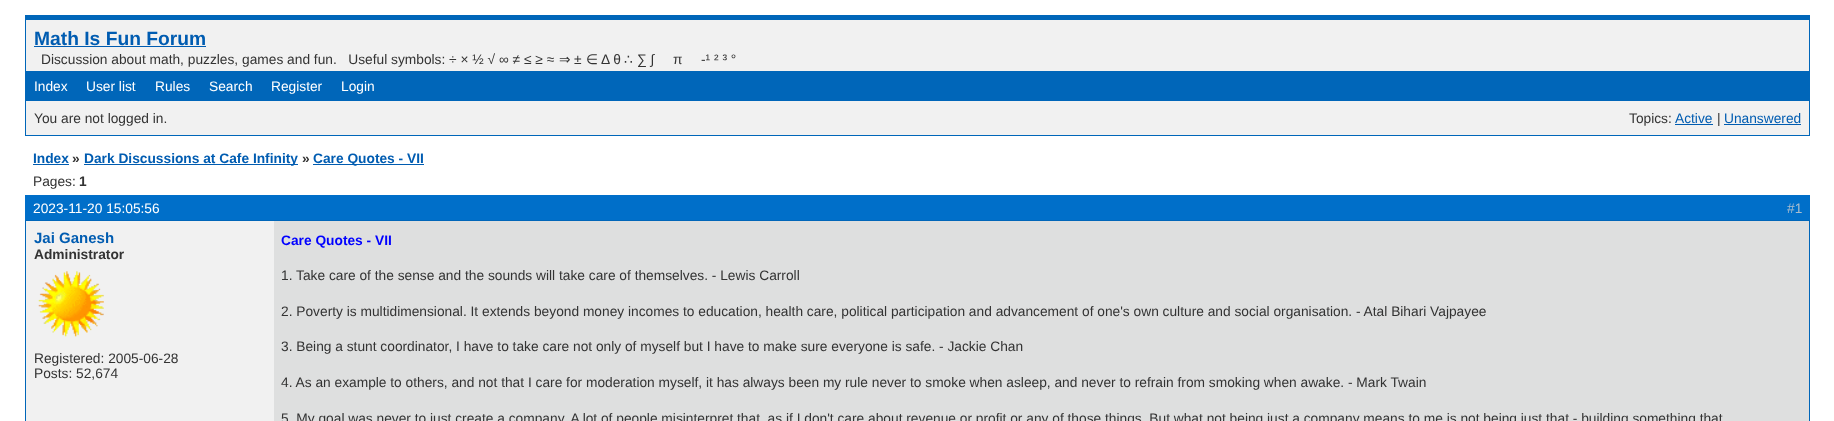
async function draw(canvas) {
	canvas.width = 1834;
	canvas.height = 421;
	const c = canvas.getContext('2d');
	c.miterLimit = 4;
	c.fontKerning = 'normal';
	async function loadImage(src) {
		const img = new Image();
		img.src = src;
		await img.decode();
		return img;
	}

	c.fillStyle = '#fff';
	c.fillRect(0, 0, 1834, 421);
	for (const [x, y, w, h, color] of [
		[26, 20, 1783, 115, '#f1f1f1'],
		[25, 15, 1785, 5, '#0066b9'],
		[1809, 15, 1, 121, '#0066b9'],
		[25, 135, 1785, 1, '#0066b9'],
		[25, 15, 1, 121, '#0066b9'],
	]) {
		c.fillStyle = color;
		c.fillRect(x, y, w, h);
	}
	c.font = 'bold 19.25px Liberation Sans';
	c.fillStyle = '#005cb1';
	c.fillText('Math Is Fun Forum', 34, 45);
	c.fillRect(34, 46, 172, 1);
	c.font = '13.75px Liberation Sans';
	c.fillStyle = '#333';
	c.fillText('Discussion about math, puzzles, games and fun.   Useful symbols: ÷ × ½ √ ∞ ≠ ≤ ≥ ≈', 41, 64);
	c.font = '13.75px DejaVu Sans';
	c.fillText('⇒', 559, 64);
	c.font = '13.75px Liberation Sans';
	c.fillText('±', 574, 64);
	c.font = '13.75px DejaVu Sans';
	c.fillText('∈', 586, 64);
	c.font = '13.75px Liberation Sans';
	c.fillText('Δ θ', 601, 64);
	c.font = '13.75px DejaVu Sans';
	c.fillText('∴', 624, 64);
	c.font = '13.75px Liberation Sans';
	for (const [text, x, y] of [
		['∑ ∫', 637, 64],
		['π', 673, 64],
		['-¹ ² ³ °', 701, 64],
	]) {
		c.fillText(text, x, y);
	}
	c.fillStyle = '#0066b9';
	c.fillRect(26, 71, 1783, 30);
	c.fillStyle = '#fff';
	for (const [text, x, y] of [
		['Index', 34, 91],
		['User list', 86, 91],
		['Rules', 155, 91],
		['Search', 209, 91],
		['Register', 271, 91],
		['Login', 341, 91],
	]) {
		c.fillText(text, x, y);
	}
	c.fillStyle = '#333';
	c.fillText('You are not logged in.', 34, 123);
	c.fillText('Topics:', 1629, 123);
	c.fillStyle = '#005cb1';
	c.fillText('Active', 1675, 123);
	c.fillRect(1675, 124, 38, 1);
	c.fillStyle = '#333';
	c.fillText('|', 1717, 123);
	c.fillStyle = '#005cb1';
	c.fillText('Unanswered', 1724, 123);
	c.fillRect(1724, 124, 77, 1);
	c.font = 'bold 13.75px Liberation Sans';
	c.fillText('Index', 33, 163);
	c.fillRect(33, 164, 36, 1);
	c.fillStyle = '#333';
	c.fillText('»', 72, 163);
	c.fillStyle = '#005cb1';
	c.fillRect(84, 164, 214, 1);
	c.fillText('Dark Discussions at Cafe Infinity', 84, 163);
	c.fillStyle = '#333';
	c.fillText('»', 302, 163);
	c.fillStyle = '#005cb1';
	c.fillRect(313, 164, 111, 1);
	c.fillText('Care Quotes - VII', 313, 163);
	c.font = '13.75px Liberation Sans';
	c.fillStyle = '#333';
	c.fillText('Pages:', 33, 186);
	c.font = 'bold 13.75px Liberation Sans';
	c.fillText('1', 79, 186);
	c.fillStyle = '#006fc9';
	c.fillRect(25, 195, 1785, 25);
	c.font = '13.75px Liberation Sans';
	c.fillStyle = '#fff';
	c.fillText('2023-11-20 15:05:56', 33, 213);
	c.fillStyle = '#aabdcd';
	c.fillText('#1', 1787, 213);
	c.fillStyle = '#dedfdf';
	c.fillRect(274, 221, 1535, 200);
	c.strokeStyle = '#0066b9';
	c.strokeRect(25.5, 220.5, 1784, 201);
	c.fillStyle = '#f1f1f1';
	c.fillRect(26, 221, 248, 200);
	c.font = 'bold 15px Liberation Sans';
	c.fillStyle = '#005cb1';
	c.fillText('Jai Ganesh', 34, 243);
	c.font = 'bold 13.75px Liberation Sans';
	c.fillStyle = '#333';
	c.fillText('Administrator', 34, 259);
	c.drawImage(await loadImage('img1.png'), 38, 271, 66, 66);
	c.font = '13.75px Liberation Sans';
	c.fillText('Registered: 2005-06-28', 34, 363);
	c.fillText('Posts: 52,674', 34, 378);
	c.font = 'bold 13.75px Liberation Sans';
	c.fillStyle = '#00f';
	c.fillText('Care Quotes - VII', 281, 245);
	c.font = '13.75px Liberation Sans';
	c.fillStyle = '#333';
	for (const [text, x, y] of [
		['1. Take care of the sense and the sounds will take care of themselves. - Lewis Carroll', 281, 280],
		['2. Poverty is multidimensional. It extends beyond money incomes to education, health care, political participation and advancement of one\'s own culture and social organisation. - Atal Bihari Vajpayee', 281, 316],
		['3. Being a stunt coordinator, I have to take care not only of myself but I have to make sure everyone is safe. - Jackie Chan', 281, 351],
		['4. As an example to others, and not that I care for moderation myself, it has always been my rule never to smoke when asleep, and never to refrain from smoking when awake. - Mark Twain', 281, 387],
		['5. My goal was never to just create a company. A lot of people misinterpret that, as if I don\'t care about revenue or profit or any of those things. But what not being just a company means to me is not being just that - building something that', 281, 423],
	]) {
		c.fillText(text, x, y);
	}
}

draw(document.querySelector('canvas'));
